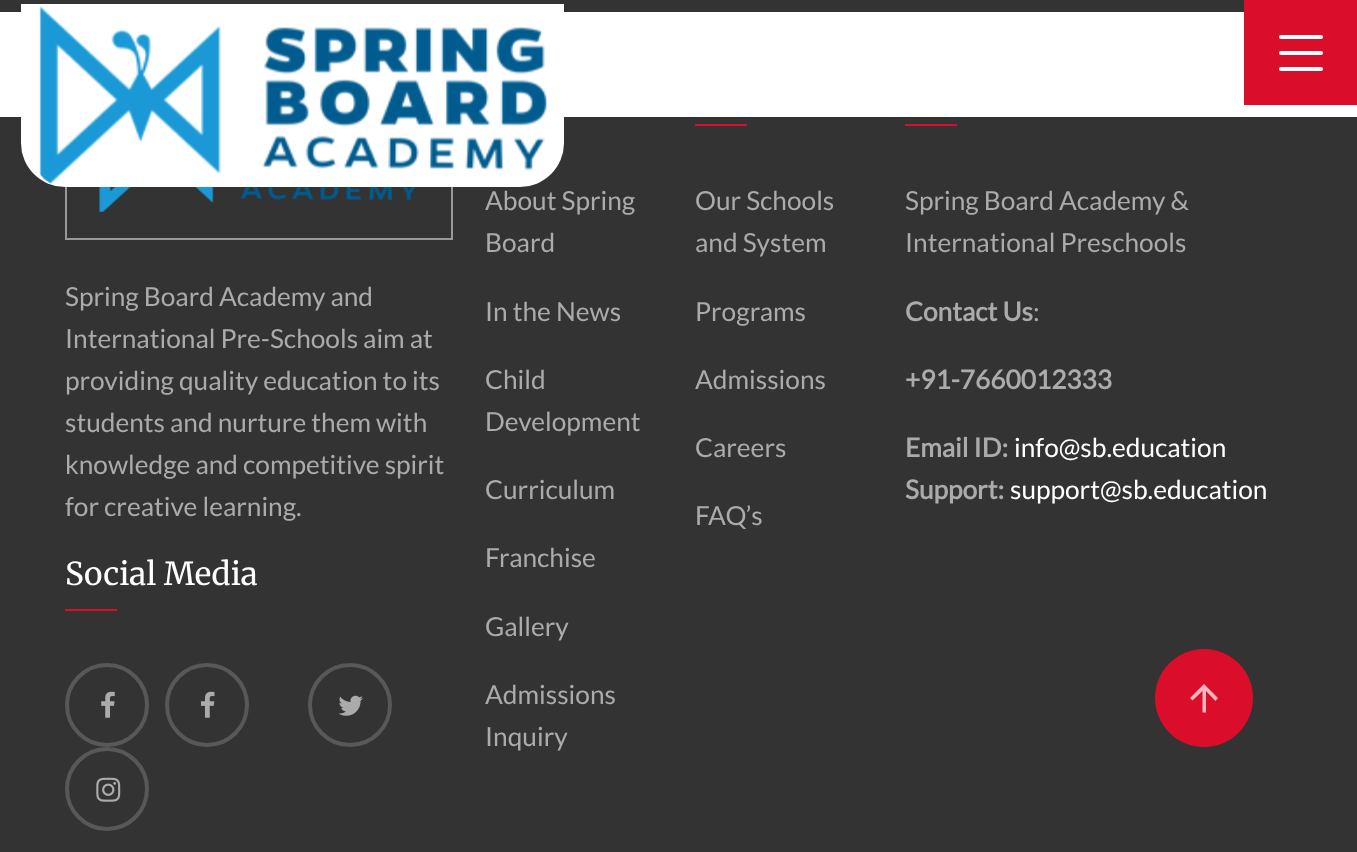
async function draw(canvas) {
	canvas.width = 1357;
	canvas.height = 852;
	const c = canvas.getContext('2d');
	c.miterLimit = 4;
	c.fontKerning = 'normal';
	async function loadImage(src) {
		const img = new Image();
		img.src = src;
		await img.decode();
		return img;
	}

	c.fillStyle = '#333';
	c.fillRect(0, 0, 1357, 852);
	c.strokeStyle = '#999';
	c.lineWidth = 2;
	c.strokeRect(66, 69, 386, 170);
	c.fillStyle = '#fff';
	c.fillRect(0, 12, 1357, 105);
	c.beginPath();
	c.roundRect(21, 4, 543, 183, [0, 0, 44, 44]);
	c.fill();
	c.drawImage(await loadImage('img1.png'), 39, 6, 508, 179);
	c.fillStyle = '#da0e2b';
	c.fillRect(1244, 0, 113, 105);
	c.fillStyle = '#fff';
	c.beginPath();
	c.roundRect(1279, 35, 44, 4, 2);
	c.fill();
	c.beginPath();
	c.roundRect(1279, 51, 44, 4, 2);
	c.fill();
	c.beginPath();
	c.roundRect(1279, 67, 44, 4, 2);
	c.fill();
	c.drawImage(await loadImage('img2.png'), 99, 187, 317, 25);
	c.font = '26.25px Lato';
	c.fillStyle = '#ababab';
	for (const [text, x, y] of [
		['Spring Board Academy and', 65, 306],
		['International Pre-Schools aim at', 65, 348],
		['providing quality education to its', 65, 390],
		['students and nurture them with', 65, 432],
		['knowledge and competitive spirit', 65, 474],
		['for creative learning.', 65, 516],
	]) {
		c.fillText(text, x, y);
	}
	c.font = '300 31.5px Merriweather';
	c.fillStyle = '#fff';
	c.fillText('Social Media', 65, 585);
	c.fillStyle = '#da0e2b';
	c.fillRect(65, 609, 52, 2);
	c.beginPath();
	c.arc(107, 705, 40, 0, 2 * Math.PI);
	c.strokeStyle = '#585858';
	c.lineWidth = 4;
	c.stroke();
	c.drawImage(await loadImage('img3.png'), 101, 691, 14, 27);
	c.beginPath();
	c.arc(207, 705, 40, 0, 2 * Math.PI);
	c.stroke();
	c.drawImage(await loadImage('img4.png'), 201, 691, 14, 27);
	c.beginPath();
	c.arc(350, 705, 40, 0, 2 * Math.PI);
	c.stroke();
	c.drawImage(await loadImage('img5.png'), 338, 695, 25, 21);
	c.beginPath();
	c.arc(107, 789, 40, 0, 2 * Math.PI);
	c.stroke();
	c.drawImage(await loadImage('img6.png'), 96, 777, 25, 25);
	c.font = '26.25px Lato';
	c.fillStyle = '#ababab';
	for (const [text, x, y] of [
		['About Spring', 485, 210],
		['Board', 485, 252],
		['In the News', 485, 321],
		['Child', 485, 389],
		['Development', 485, 431],
		['Curriculum', 485, 499],
		['Franchise', 485, 567],
		['Gallery', 485, 636],
		['Admissions', 485, 704],
		['Inquiry', 485, 746],
	]) {
		c.fillText(text, x, y);
	}
	c.fillStyle = '#da0e2b';
	c.fillRect(695, 124, 52, 2);
	c.fillStyle = '#ababab';
	for (const [text, x, y] of [
		['Our Schools', 695, 210],
		['and System', 695, 252],
		['Programs', 695, 321],
		['Admissions', 695, 389],
		['Careers', 695, 457],
		['FAQ’s', 695, 525],
	]) {
		c.fillText(text, x, y);
	}
	c.fillStyle = '#da0e2b';
	c.fillRect(905, 124, 52, 2);
	c.fillStyle = '#ababab';
	c.fillText('Spring Board Academy &', 905, 210);
	c.fillText('International Preschools', 905, 252);
	c.font = 'bold 26.25px Lato';
	c.fillText('Contact Us', 905, 321);
	c.font = '26.25px Lato';
	c.fillText(':', 1033, 321);
	c.font = 'bold 26.25px Lato';
	c.fillText('+91-7660012333', 905, 389);
	c.fillText('Email ID:', 905, 457);
	c.font = '26.25px Lato';
	c.fillStyle = '#fff';
	c.fillText('info@sb.education', 1014, 457);
	c.font = 'bold 26.25px Lato';
	c.fillStyle = '#ababab';
	c.fillText('Support:', 905, 499);
	c.font = '26.25px Lato';
	c.fillStyle = '#fff';
	c.fillText('support@sb.education', 1010, 499);
	c.fillStyle = '#da0e2b';
	c.beginPath();
	c.arc(1204, 698, 49, 0, 2 * Math.PI);
	c.fill();
	c.fillStyle = '#fff';
	c.beginPath();
	c.moveTo(1206, 712.5);
	c.lineTo(1202.5, 712.5);
	c.lineTo(1202.5, 691);
	c.lineTo(1192.5, 700.5);
	c.lineTo(1190, 698);
	c.lineTo(1204, 684);
	c.lineTo(1218, 698);
	c.lineTo(1215.5, 701);
	c.lineTo(1206, 691);
	c.closePath();
	c.fill();
	c.fillStyle = '#da0e2b4d';
	c.beginPath();
	c.roundRect(1173, 667, 64, 65, 32);
	c.fill();
}

draw(document.querySelector('canvas'));
